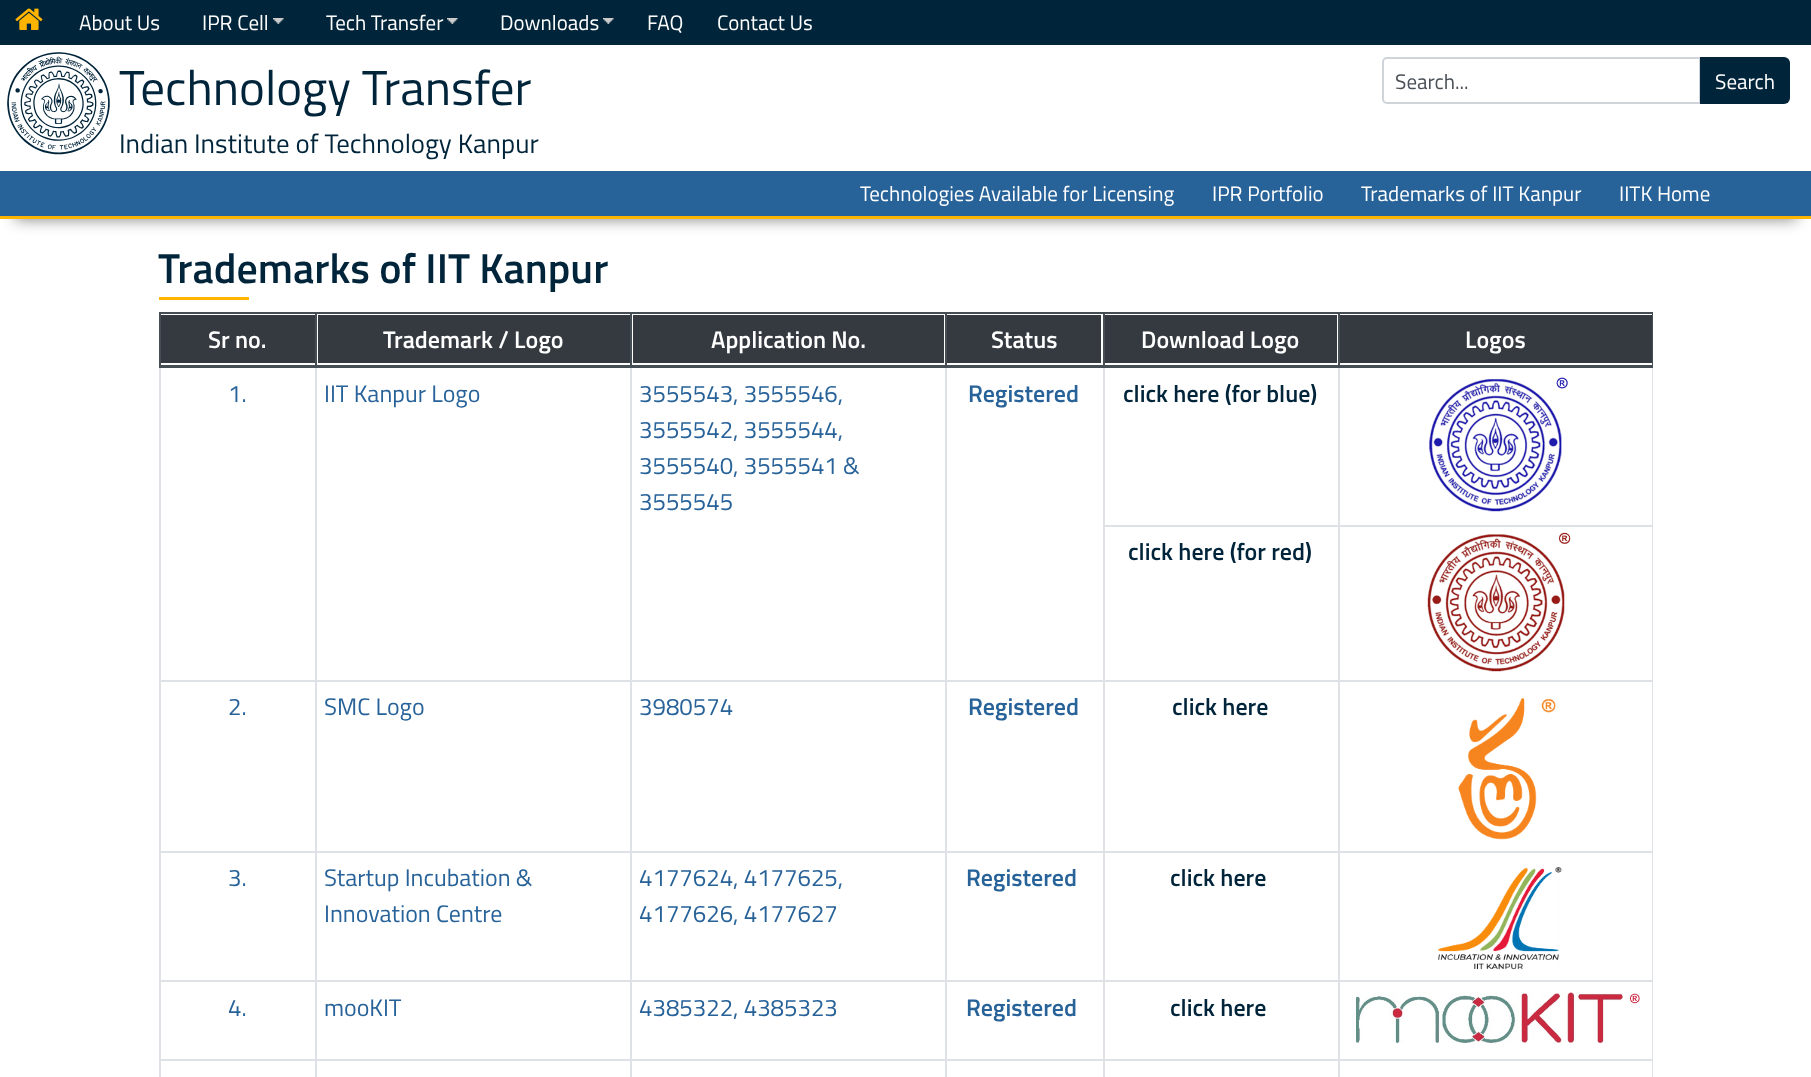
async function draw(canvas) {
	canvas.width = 1811;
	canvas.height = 1077;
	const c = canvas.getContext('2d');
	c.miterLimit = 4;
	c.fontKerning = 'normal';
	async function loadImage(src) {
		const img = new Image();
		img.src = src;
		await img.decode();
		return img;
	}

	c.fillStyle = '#fff';
	c.fillRect(0, 0, 1811, 1077);
	c.fillStyle = '#00243a';
	c.fillRect(0, 0, 1811, 45);
	c.drawImage(await loadImage('img1.png'), 15, 8, 28, 22);
	c.font = '21px Titillium Web';
	c.fillStyle = '#fff';
	c.fillText('About Us', 79, 30);
	c.drawImage(await loadImage('img2.png'), 273, 18, 11, 6);
	c.fillText('IPR Cell', 202, 30);
	c.drawImage(await loadImage('img2.png'), 447, 18, 11, 6);
	c.fillText('Tech Transfer', 326, 30);
	c.drawImage(await loadImage('img2.png'), 603, 18, 11, 6);
	for (const [text, x, y] of [
		['Downloads', 500, 30],
		['FAQ', 647, 30],
		['Contact Us', 717, 30],
	]) {
		c.fillText(text, x, y);
	}
	c.drawImage(await loadImage('img3.png'), 7, 52, 103, 103);
	c.font = '49px Titillium Web';
	c.fillStyle = '#00243a';
	c.fillText('Technology Transfer', 119, 105);
	c.font = '26.9px Titillium Web';
	c.fillText('Indian Institute of Technology Kanpur', 119, 153);
	c.beginPath();
	c.roundRect(1383, 58, 317, 45, [4, 0, 0, 4]);
	c.strokeStyle = '#ced4da';
	c.lineWidth = 2;
	c.stroke();
	c.font = '21px Titillium Web';
	c.fillStyle = '#495057';
	c.fillText('Search...', 1395, 89);
	c.fillStyle = '#00243a';
	c.beginPath();
	c.roundRect(1700, 57, 90, 47, [0, 6, 6, 0]);
	c.fill();
	c.fillStyle = '#fff';
	c.fillText('Search', 1715, 89);
	c.fillStyle = '#00000080';
	c.filter = 'blur(7.5px)';
	c.beginPath();
	c.rect(15, 201, 1782, 18);
	c.fill();
	c.filter = 'none';
	c.fillStyle = '#276299';
	c.fillRect(0, 171, 1811, 45);
	c.fillStyle = '#ffb400';
	c.fillRect(0, 216, 1811, 3);
	c.fillStyle = '#fff';
	for (const [text, x, y] of [
		['Technologies Available for Licensing', 860, 201],
		['IPR Portfolio', 1212, 201],
		['Trademarks of IIT Kanpur', 1361, 201],
		['IITK Home', 1619, 201],
	]) {
		c.fillText(text, x, y);
	}
	c.font = '600 42px Titillium Web';
	c.fillStyle = '#00243a';
	c.fillText('Trademarks of IIT Kanpur', 158, 283);
	for (const [x, y, w, h, color] of [
		[159, 297, 90, 3, '#ffb400'],
		[161, 315, 154, 48, '#343a40'],
		[1338, 312, 315, 2, '#454d55'],
		[1338, 525, 315, 2, '#dee2e6'],
		[1338, 680, 315, 2, '#dee2e6'],
		[1338, 851, 315, 2, '#dee2e6'],
		[1338, 980, 315, 2, '#dee2e6'],
		[1338, 1059, 315, 2, '#dee2e6'],
		[1338, 1059, 2, 18, '#dee2e6'],
		[1103, 1059, 237, 2, '#dee2e6'],
		[1338, 980, 2, 81, '#dee2e6'],
		[1103, 980, 237, 2, '#dee2e6'],
		[1338, 851, 2, 130, '#dee2e6'],
		[1103, 851, 237, 2, '#dee2e6'],
		[1338, 680, 2, 172, '#dee2e6'],
		[1103, 680, 237, 2, '#dee2e6'],
		[1338, 525, 2, 156, '#dee2e6'],
		[1103, 525, 237, 2, '#dee2e6'],
		[1338, 366, 2, 161, '#dee2e6'],
		[1338, 312, 2, 56, '#454d55'],
		[1103, 312, 237, 2, '#454d55'],
		[1103, 1059, 2, 18, '#dee2e6'],
		[945, 1059, 159, 2, '#dee2e6'],
		[1103, 980, 2, 81, '#dee2e6'],
		[945, 980, 159, 2, '#dee2e6'],
		[1103, 851, 2, 130, '#dee2e6'],
		[945, 851, 159, 2, '#dee2e6'],
		[1103, 680, 2, 172, '#dee2e6'],
		[945, 680, 159, 2, '#dee2e6'],
		[1103, 366, 2, 315, '#dee2e6'],
		[1103, 312, 2, 56, '#454d55'],
		[945, 312, 159, 2, '#454d55'],
		[945, 1059, 2, 18, '#dee2e6'],
		[630, 1059, 317, 2, '#dee2e6'],
		[945, 980, 2, 81, '#dee2e6'],
		[630, 980, 317, 2, '#dee2e6'],
		[945, 851, 2, 130, '#dee2e6'],
		[630, 851, 317, 2, '#dee2e6'],
		[945, 680, 2, 172, '#dee2e6'],
		[630, 680, 317, 2, '#dee2e6'],
		[945, 366, 2, 315, '#dee2e6'],
		[945, 312, 2, 56, '#454d55'],
		[630, 312, 317, 2, '#454d55'],
		[630, 1059, 2, 18, '#dee2e6'],
		[315, 1059, 317, 2, '#dee2e6'],
		[630, 980, 2, 81, '#dee2e6'],
		[315, 980, 317, 2, '#dee2e6'],
		[630, 851, 2, 130, '#dee2e6'],
		[315, 851, 317, 2, '#dee2e6'],
		[630, 680, 2, 172, '#dee2e6'],
		[315, 680, 317, 2, '#dee2e6'],
		[630, 366, 2, 315, '#dee2e6'],
		[630, 312, 2, 56, '#454d55'],
		[315, 312, 317, 2, '#454d55'],
		[315, 1059, 2, 18, '#dee2e6'],
		[159, 1059, 158, 2, '#dee2e6'],
		[315, 980, 2, 81, '#dee2e6'],
		[159, 980, 158, 2, '#dee2e6'],
		[315, 851, 2, 130, '#dee2e6'],
		[159, 851, 158, 2, '#dee2e6'],
		[315, 680, 2, 172, '#dee2e6'],
		[159, 680, 158, 2, '#dee2e6'],
		[315, 366, 2, 315, '#dee2e6'],
		[315, 312, 2, 56, '#454d55'],
		[159, 312, 158, 2, '#454d55'],
		[159, 1059, 2, 18, '#dee2e6'],
		[159, 980, 2, 81, '#dee2e6'],
		[159, 851, 2, 130, '#dee2e6'],
		[159, 366, 2, 486, '#dee2e6'],
		[159, 312, 2, 56, '#454d55'],
	]) {
		c.fillStyle = color;
		c.fillRect(x, y, w, h);
	}
	c.font = '600 24px Titillium Web';
	c.fillStyle = '#fff';
	c.fillText('Sr no.', 208, 348);
	c.fillStyle = '#343a40';
	c.fillRect(318, 315, 312, 48);
	c.fillStyle = '#fff';
	c.fillText('Trademark / Logo', 383, 348);
	c.fillStyle = '#343a40';
	c.fillRect(633, 315, 311, 48);
	c.fillStyle = '#fff';
	c.fillText('Application No.', 711, 348);
	c.fillStyle = '#343a40';
	c.fillRect(947, 315, 154, 48);
	c.fillStyle = '#fff';
	c.fillText('Status', 991, 348);
	c.fillStyle = '#343a40';
	c.fillRect(1105, 315, 232, 48);
	c.fillStyle = '#fff';
	c.fillText('Download Logo', 1141, 348);
	for (const [x, y, w, h, color] of [
		[1340, 315, 312, 48, '#343a40'],
		[1652, 1059, 1, 18, '#dee2e6'],
		[1652, 980, 1, 81, '#dee2e6'],
		[1652, 851, 1, 130, '#dee2e6'],
		[1652, 680, 1, 172, '#dee2e6'],
		[1652, 366, 1, 315, '#dee2e6'],
		[1652, 312, 1, 56, '#454d55'],
		[159, 365, 1494, 3, '#454d55'],
	]) {
		c.fillStyle = color;
		c.fillRect(x, y, w, h);
	}
	c.fillStyle = '#fff';
	c.fillText('Logos', 1465, 348);
	c.font = '24px Titillium Web';
	c.fillStyle = '#276299';
	for (const [text, x, y] of [
		['1.', 228, 402],
		['IIT Kanpur Logo', 324, 402],
		['3555543, 3555546,', 639, 402],
		['3555542, 3555544,', 639, 438],
		['3555540, 3555541 &', 639, 474],
		['3555545', 639, 510],
	]) {
		c.fillText(text, x, y);
	}
	c.font = '600 24px Titillium Web';
	c.fillText('Registered', 968, 402);
	c.fillStyle = '#00243a';
	c.fillText('click here (for blue)', 1123, 402);
	c.drawImage(await loadImage('img4.png'), 1429, 377, 139, 135);
	c.fillText('click here (for red)', 1128, 560);
	c.drawImage(await loadImage('img5.png'), 1427, 532, 144, 140);
	c.font = '24px Titillium Web';
	c.fillStyle = '#276299';
	for (const [text, x, y] of [
		['2.', 228, 715],
		['SMC Logo', 324, 715],
		['3980574', 639, 715],
	]) {
		c.fillText(text, x, y);
	}
	c.font = '600 24px Titillium Web';
	c.fillText('Registered', 968, 715);
	c.fillStyle = '#00243a';
	c.fillText('click here', 1172, 715);
	c.drawImage(await loadImage('img6.png'), 1458, 698, 98, 142);
	c.font = '24px Titillium Web';
	c.fillStyle = '#276299';
	for (const [text, x, y] of [
		['3.', 228, 886],
		['Startup Incubation &', 324, 886],
		['Innovation Centre', 324, 922],
		['4177624, 4177625,', 639, 886],
		['4177626, 4177627', 639, 922],
	]) {
		c.fillText(text, x, y);
	}
	c.font = '600 24px Titillium Web';
	c.fillText('Registered', 966, 886);
	c.fillStyle = '#00243a';
	c.fillText('click here', 1170, 886);
	c.drawImage(await loadImage('img7.png'), 1438, 867, 124, 103);
	c.font = '24px Titillium Web';
	c.fillStyle = '#276299';
	for (const [text, x, y] of [
		['4.', 228, 1016],
		['mooKIT', 324, 1016],
		['4385322, 4385323', 639, 1016],
	]) {
		c.fillText(text, x, y);
	}
	c.font = '600 24px Titillium Web';
	c.fillText('Registered', 966, 1016);
	c.fillStyle = '#00243a';
	c.fillText('click here', 1170, 1016);
	c.drawImage(await loadImage('img8.png'), 1356, 992, 284, 51);
}

draw(document.querySelector('canvas'));
